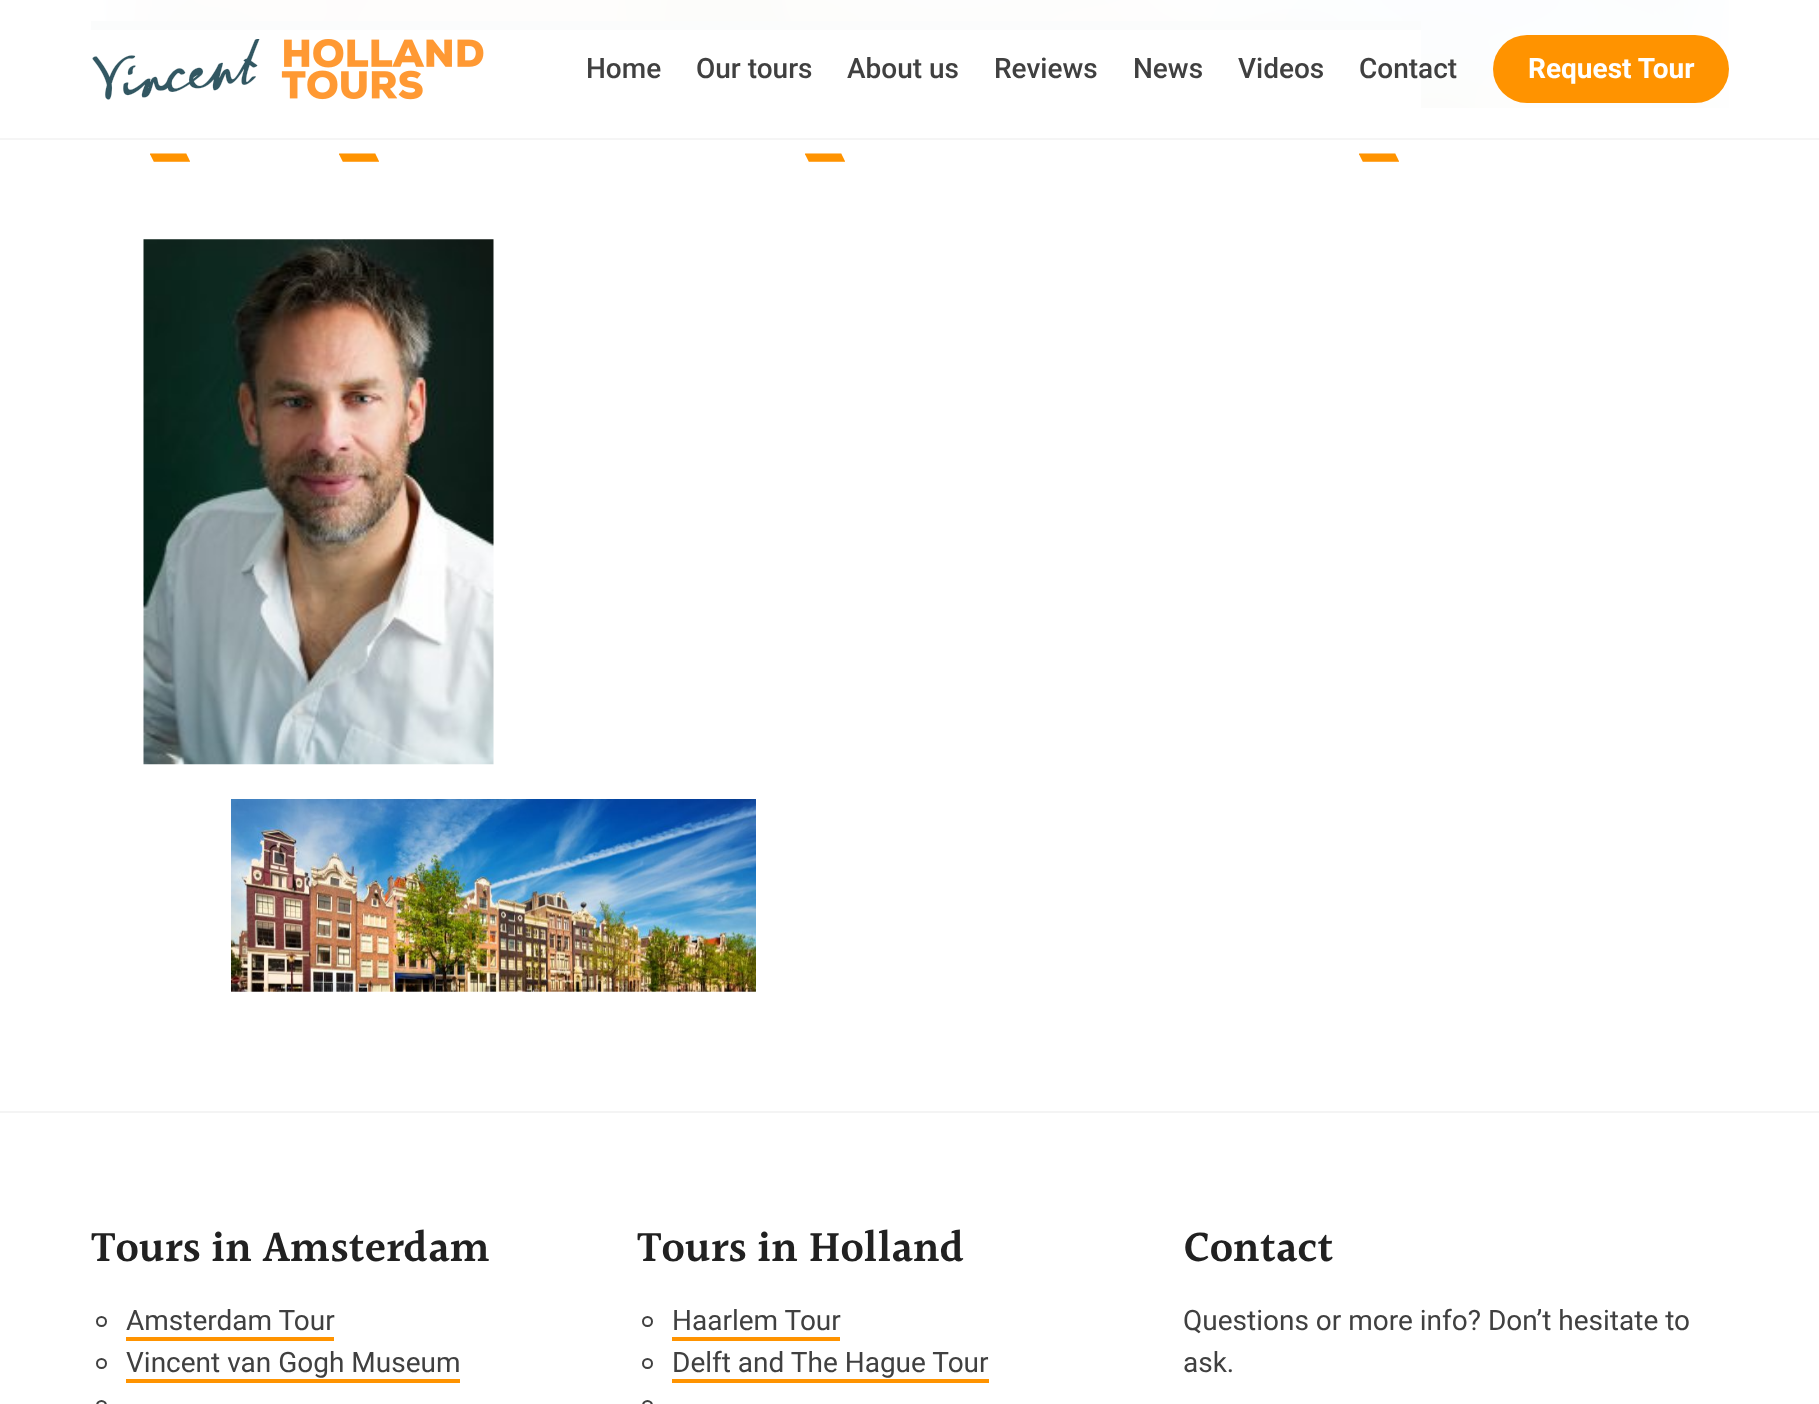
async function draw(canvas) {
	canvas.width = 1819;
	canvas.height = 1404;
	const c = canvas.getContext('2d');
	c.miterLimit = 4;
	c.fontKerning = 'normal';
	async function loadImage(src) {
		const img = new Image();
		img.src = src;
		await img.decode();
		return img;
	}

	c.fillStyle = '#fff';
	c.fillRect(0, 0, 1819, 1404);
	c.drawImage(await loadImage('img1.png'), 91, 0, 1638, 108);
	for (const [x, y, w, h, color] of [
		[91, 30, 1330, 78, '#fff'],
		[91, 21, 1330, 9, '#325762'],
		[91, 0, 1638, 108, '#fffffffa'],
		[0, 138, 1819, 2, '#f5f5f5'],
	]) {
		c.fillStyle = color;
		c.fillRect(x, y, w, h);
	}
	c.drawImage(await loadImage('img2.png'), 92, 39, 392, 61);
	c.font = '500 28px Roboto';
	c.fillStyle = '#404040';
	for (const [text, x, y] of [
		['Home', 586, 78],
		['Our tours', 696, 78],
		['About us', 847, 78],
		['Reviews', 994, 78],
		['News', 1133, 78],
		['Videos', 1238, 78],
		['Contact', 1359, 78],
	]) {
		c.fillText(text, x, y);
	}
	c.fillStyle = '#ff9300';
	c.beginPath();
	c.roundRect(1493, 35, 236, 68, 34);
	c.fill();
	c.font = 'bold 28px Roboto';
	c.fillStyle = '#fff';
	c.fillText('Request Tour', 1528, 78);
	c.font = '600 88px Halant';
	c.fillStyle = '#ff9300';
	for (const [text, x, y] of [
		['_', 144, 170],
		['_', 333, 170],
		['_', 799, 170],
		['_', 1353, 170],
	]) {
		c.fillText(text, x, y);
	}
	c.drawImage(await loadImage('img3.png'), 143, 239, 351, 526);
	c.drawImage(await loadImage('img4.png'), 231, 799, 525, 193);
	c.fillStyle = '#f4f4f4';
	c.fillRect(0, 1111, 1819, 2);
	c.font = '600 43.75px Halant';
	c.fillStyle = '#212121';
	c.fillText('Tours in Amsterdam', 91, 1263);
	c.beginPath();
	c.arc(101.5, 1321.5, 4.5, 0, 2 * Math.PI);
	c.strokeStyle = '#404040';
	c.lineWidth = 2;
	c.stroke();
	c.font = '28px Roboto';
	c.fillStyle = '#404040';
	c.fillText('Amsterdam Tour', 126, 1330);
	c.fillStyle = '#ff9300';
	c.fillRect(126, 1337, 208, 4);
	c.beginPath();
	c.arc(101.5, 1363.5, 4.5, 0, 2 * Math.PI);
	c.stroke();
	c.fillStyle = '#404040';
	c.fillText('Vincent van Gogh Museum', 126, 1372);
	c.fillStyle = '#ff9300';
	c.fillRect(126, 1379, 334, 4);
	c.beginPath();
	c.arc(101.5, 1405.5, 4.5, 0, 2 * Math.PI);
	c.stroke();
	c.font = '600 43.75px Halant';
	c.fillStyle = '#212121';
	c.fillText('Tours in Holland', 637, 1263);
	c.beginPath();
	c.arc(647.5, 1321.5, 4.5, 0, 2 * Math.PI);
	c.stroke();
	c.font = '28px Roboto';
	c.fillStyle = '#404040';
	c.fillText('Haarlem Tour', 672, 1330);
	c.fillStyle = '#ff9300';
	c.fillRect(672, 1337, 168, 4);
	c.beginPath();
	c.arc(647.5, 1363.5, 4.5, 0, 2 * Math.PI);
	c.stroke();
	c.fillStyle = '#404040';
	c.fillText('Delft and The Hague Tour', 672, 1372);
	c.fillStyle = '#ff9300';
	c.fillRect(672, 1379, 317, 4);
	c.beginPath();
	c.arc(647.5, 1405.5, 4.5, 0, 2 * Math.PI);
	c.stroke();
	c.font = '600 43.75px Halant';
	c.fillStyle = '#212121';
	c.fillText('Contact', 1183, 1263);
	c.font = '28px Roboto';
	c.fillStyle = '#404040';
	c.fillText('Questions or more info? Don’t hesitate to', 1183, 1330);
	c.fillText('ask.', 1183, 1372);
}

draw(document.querySelector('canvas'));
